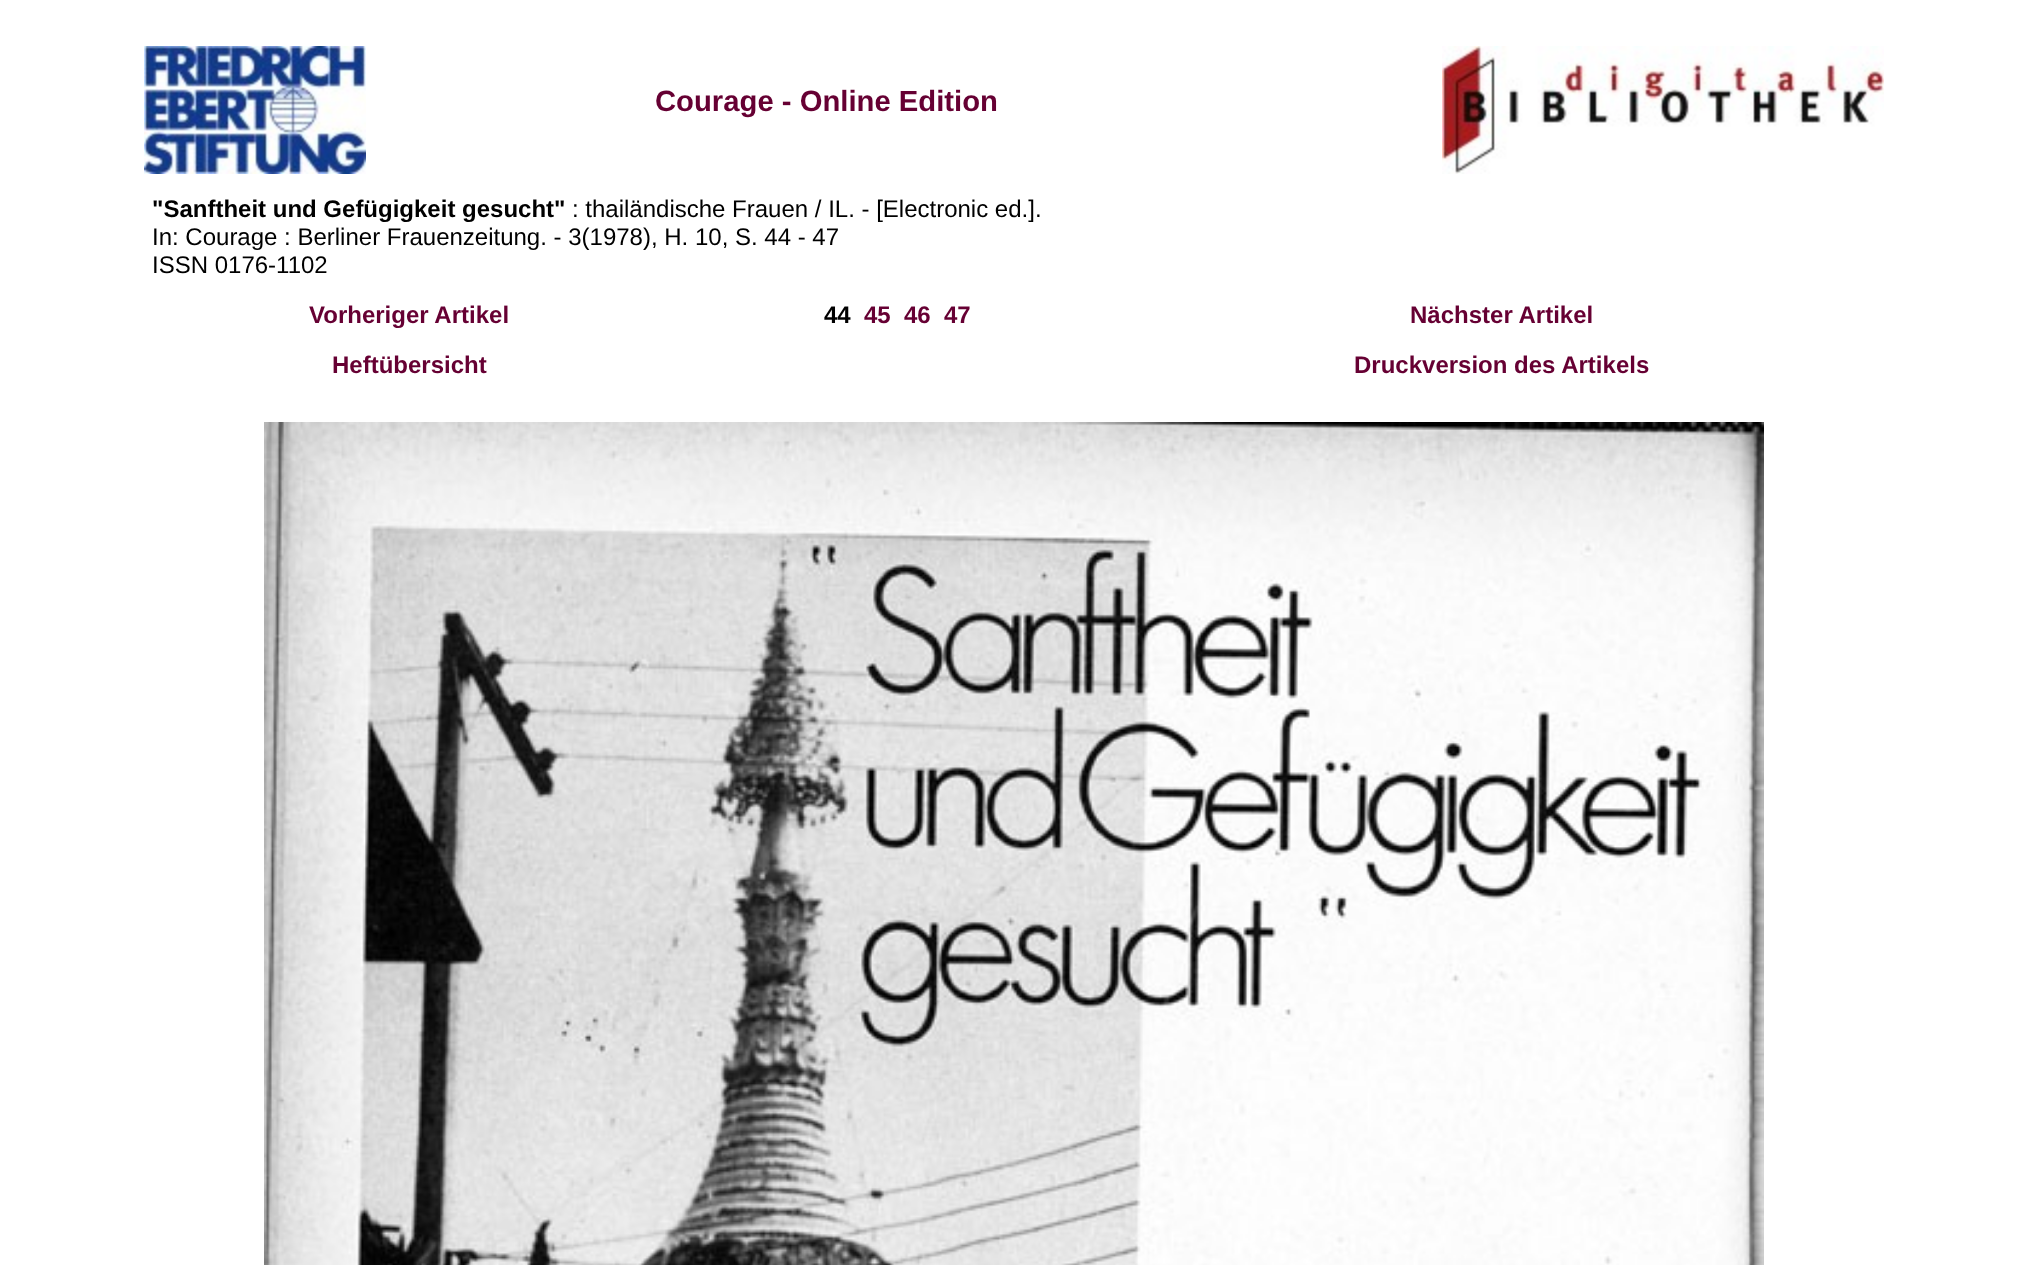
async function draw(canvas) {
	canvas.width = 2028;
	canvas.height = 1265;
	const c = canvas.getContext('2d');
	c.miterLimit = 4;
	c.fontKerning = 'normal';
	async function loadImage(src) {
		const img = new Image();
		img.src = src;
		await img.decode();
		return img;
	}

	c.fillStyle = '#fff';
	c.fillRect(0, 0, 2028, 1265);
	c.drawImage(await loadImage('img1.png'), 144, 46, 222, 128);
	c.font = 'bold 29.25px Liberation Sans';
	c.fillStyle = '#603';
	c.fillText('Courage - Online Edition', 655, 111);
	c.drawImage(await loadImage('img2.png'), 1442, 46, 442, 128);
	c.font = 'bold 24px Liberation Sans';
	c.fillStyle = '#000';
	c.fillText('"Sanftheit und Gefügigkeit gesucht"', 152, 217);
	c.font = '24px Liberation Sans';
	for (const [text, x, y] of [
		[': thailändische Frauen / IL. - [Electronic ed.].', 572, 217],
		['In: Courage : Berliner Frauenzeitung. - 3(1978), H. 10, S. 44 - 47', 152, 245],
		['ISSN 0176-1102', 152, 273],
	]) {
		c.fillText(text, x, y);
	}
	c.font = 'bold 24px Liberation Sans';
	c.fillStyle = '#603';
	c.fillText('Vorheriger Artikel', 309, 323);
	c.fillStyle = '#000';
	c.fillText('44', 824, 323);
	c.fillStyle = '#603';
	for (const [text, x, y] of [
		['45', 864, 323],
		['46', 904, 323],
		['47', 944, 323],
		['Nächster Artikel', 1410, 323],
		['Heftübersicht', 332, 373],
		['Druckversion des Artikels', 1354, 373],
	]) {
		c.fillText(text, x, y);
	}
	c.drawImage(await loadImage('img3.png'), 264, 422, 1500, 843);
}

draw(document.querySelector('canvas'));
